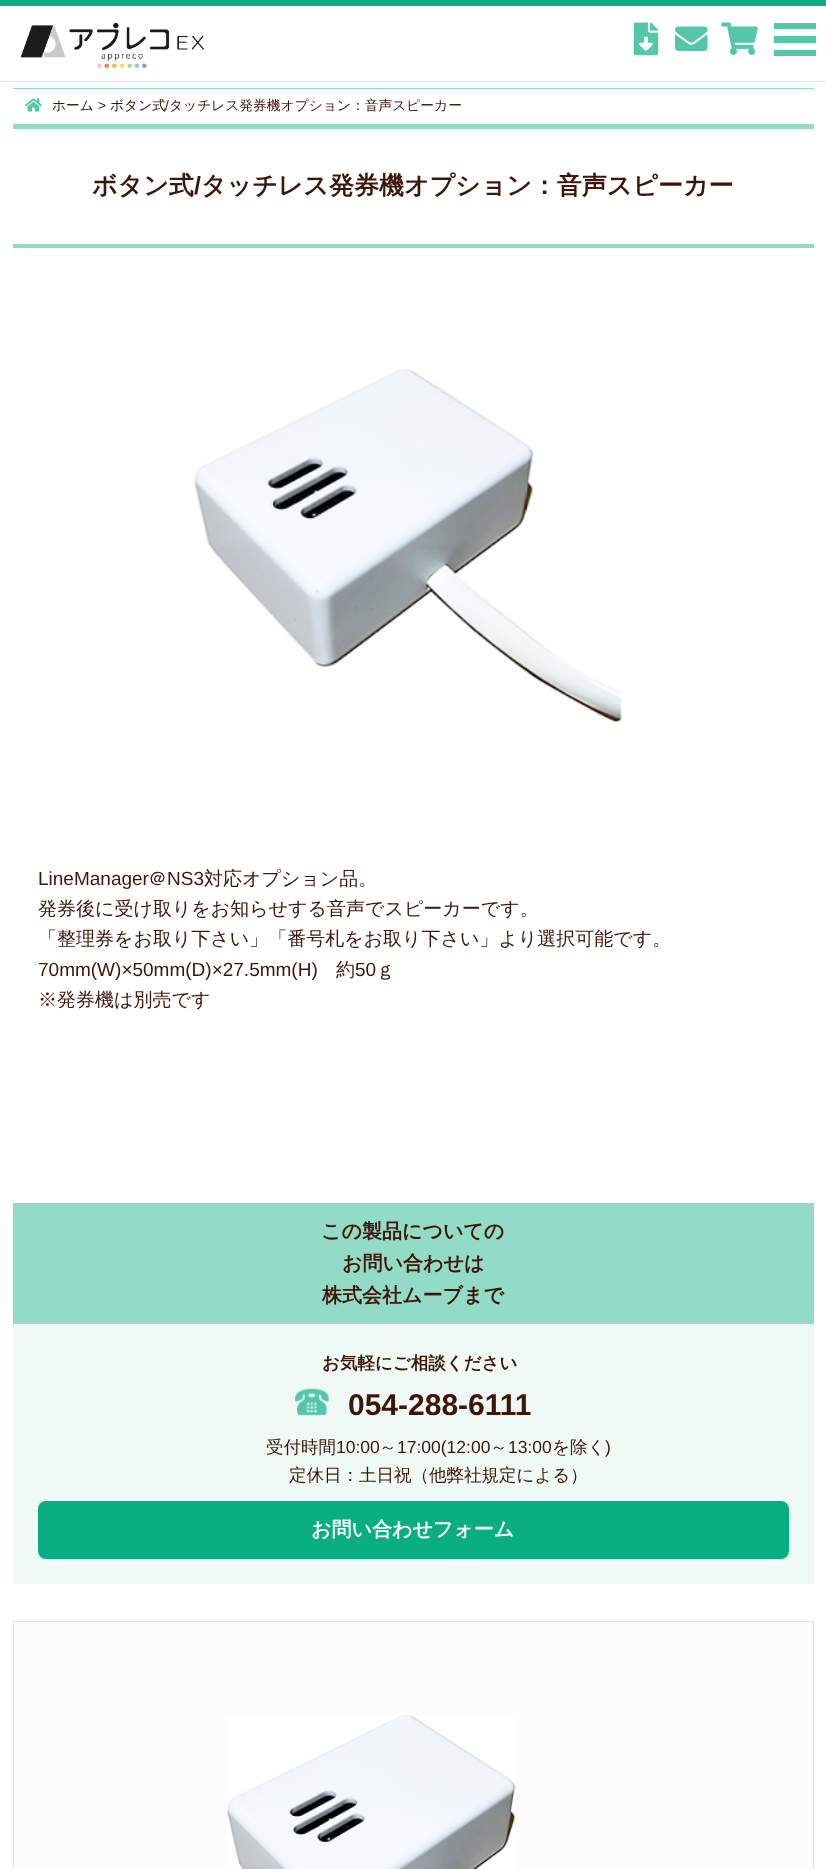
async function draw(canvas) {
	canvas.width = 826;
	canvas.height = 1869;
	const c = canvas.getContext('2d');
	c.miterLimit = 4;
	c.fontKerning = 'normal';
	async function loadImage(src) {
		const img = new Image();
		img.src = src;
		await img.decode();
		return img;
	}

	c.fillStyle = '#fff';
	c.fillRect(0, 0, 826, 1869);
	c.fillStyle = '#08ae82';
	c.fillRect(0, 0, 826, 6);
	c.fillStyle = '#e2e2e2';
	c.fillRect(0, 81, 826, 1);
	c.drawImage(await loadImage('img1.png'), 20, 22, 184, 46);
	c.drawImage(await loadImage('img2.png'), 633, 22, 26, 33);
	c.drawImage(await loadImage('img3.png'), 675, 26, 33, 25);
	c.drawImage(await loadImage('img4.png'), 721, 22, 37, 33);
	for (const [x, y, w, h, color] of [
		[774, 36, 42, 7, '#55c7a9'],
		[774, 23, 42, 6, '#55c7a9'],
		[774, 50, 42, 6, '#55c7a9'],
		[13, 88, 801, 1, '#91dbc7'],
		[13, 124, 801, 5, '#91dbc7'],
	]) {
		c.fillStyle = color;
		c.fillRect(x, y, w, h);
	}
	c.drawImage(await loadImage('img5.png'), 25, 98, 17, 14);
	c.font = '500 13.75px WenQuanYi Zen Hei';
	c.fillStyle = '#3f1409';
	c.fillText('ホーム', 52, 110);
	c.font = '13.75px Liberation Sans';
	c.fillText('>', 98, 110);
	c.font = '500 13.75px WenQuanYi Zen Hei';
	c.fillText('ボタン式', 110, 110);
	c.font = '13.75px Liberation Sans';
	c.fillText('/', 165, 110);
	c.font = '500 13.75px WenQuanYi Zen Hei';
	c.fillText('タッチレス発券機オプション：音声スピーカー', 169, 110);
	c.fillStyle = '#91dbc7';
	c.fillRect(13, 244, 801, 4);
	c.font = 'bold 25px WenQuanYi Zen Hei';
	c.fillStyle = '#3f1409';
	c.fillText('ボタン式', 92, 194);
	c.font = 'bold 25px Liberation Sans';
	c.fillText('/', 194, 194);
	c.font = 'bold 25px WenQuanYi Zen Hei';
	c.fillText('タッチレス発券機オプション：音声スピーカー', 201, 194);
	c.drawImage(await loadImage('img6.png'), 193, 368, 430, 355);
	c.font = '19px Liberation Sans';
	c.fillText('LineManager', 38, 885);
	c.font = '500 19px WenQuanYi Zen Hei';
	c.fillText('＠', 148, 885);
	c.font = '19px Liberation Sans';
	c.fillText('NS3', 167, 885);
	c.font = '500 19px WenQuanYi Zen Hei';
	for (const [text, x, y] of [
		['対応オプション品。', 204, 885],
		['発券後に受け取りをお知らせする音声でスピーカーです。', 38, 915],
		['「整理券をお取り下さい」「番号札をお取り下さい」より選択可能です。', 38, 945],
	]) {
		c.fillText(text, x, y);
	}
	c.font = '19px Liberation Sans';
	c.fillText('70mm(W)×50mm(D)×27.5mm(H)', 38, 976);
	c.font = '500 19px WenQuanYi Zen Hei';
	c.fillText('約', 336, 976);
	c.font = '19px Liberation Sans';
	c.fillText('50', 355, 976);
	c.font = '500 19px WenQuanYi Zen Hei';
	c.fillText('ｇ', 376, 976);
	c.fillText('※発券機は別売です', 38, 1006);
	c.fillStyle = '#effaf7';
	c.fillRect(13, 1324, 801, 260);
	c.fillStyle = '#91dbc7';
	c.fillRect(13, 1203, 801, 121);
	c.font = 'bold 20px WenQuanYi Zen Hei';
	c.fillStyle = '#3f1409';
	for (const [text, x, y] of [
		['この製品についての', 321, 1238],
		['お問い合わせは', 342, 1270],
		['株式会社ムーブまで', 322, 1302],
	]) {
		c.fillText(text, x, y);
	}
	c.font = 'bold 17.5px WenQuanYi Zen Hei';
	c.fillText('お気軽にご相談ください', 322, 1369);
	c.drawImage(await loadImage('img7.png'), 295, 1388, 34, 27);
	c.font = 'bold 30px Liberation Sans';
	c.fillText('054-288-6111', 348, 1415);
	c.font = '500 17.5px WenQuanYi Zen Hei';
	c.fillText('受付時間', 266, 1453);
	c.font = '17.5px Liberation Sans';
	c.fillText('10:00', 336, 1453);
	c.font = '500 17.5px WenQuanYi Zen Hei';
	c.fillText('～', 379, 1453);
	c.font = '17.5px Liberation Sans';
	c.fillText('17:00(12:00', 397, 1453);
	c.font = '500 17.5px WenQuanYi Zen Hei';
	c.fillText('～', 490, 1453);
	c.font = '17.5px Liberation Sans';
	c.fillText('13:00', 508, 1453);
	c.font = '500 17.5px WenQuanYi Zen Hei';
	c.fillText('を除く', 552, 1453);
	c.font = '17.5px Liberation Sans';
	c.fillText(')', 605, 1453);
	c.font = '500 17.5px WenQuanYi Zen Hei';
	c.fillText('定休日：土日祝（他弊社規定による）', 289, 1481);
	c.fillStyle = '#08ae82';
	c.beginPath();
	c.roundRect(38, 1501, 751, 58, 8);
	c.fill();
	c.font = 'bold 20px WenQuanYi Zen Hei';
	c.fillStyle = '#fff';
	c.fillText('お問い合わせフォーム', 311, 1536);
	c.fillStyle = '#fcfcfc';
	c.beginPath();
	c.rect(13.5, 1621.5, 800, 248);
	c.fill();
	c.strokeStyle = '#e2e2e2';
	c.stroke();
	c.drawImage(await loadImage('img8.png'), 226, 1715, 290, 154);
}

draw(document.querySelector('canvas'));
